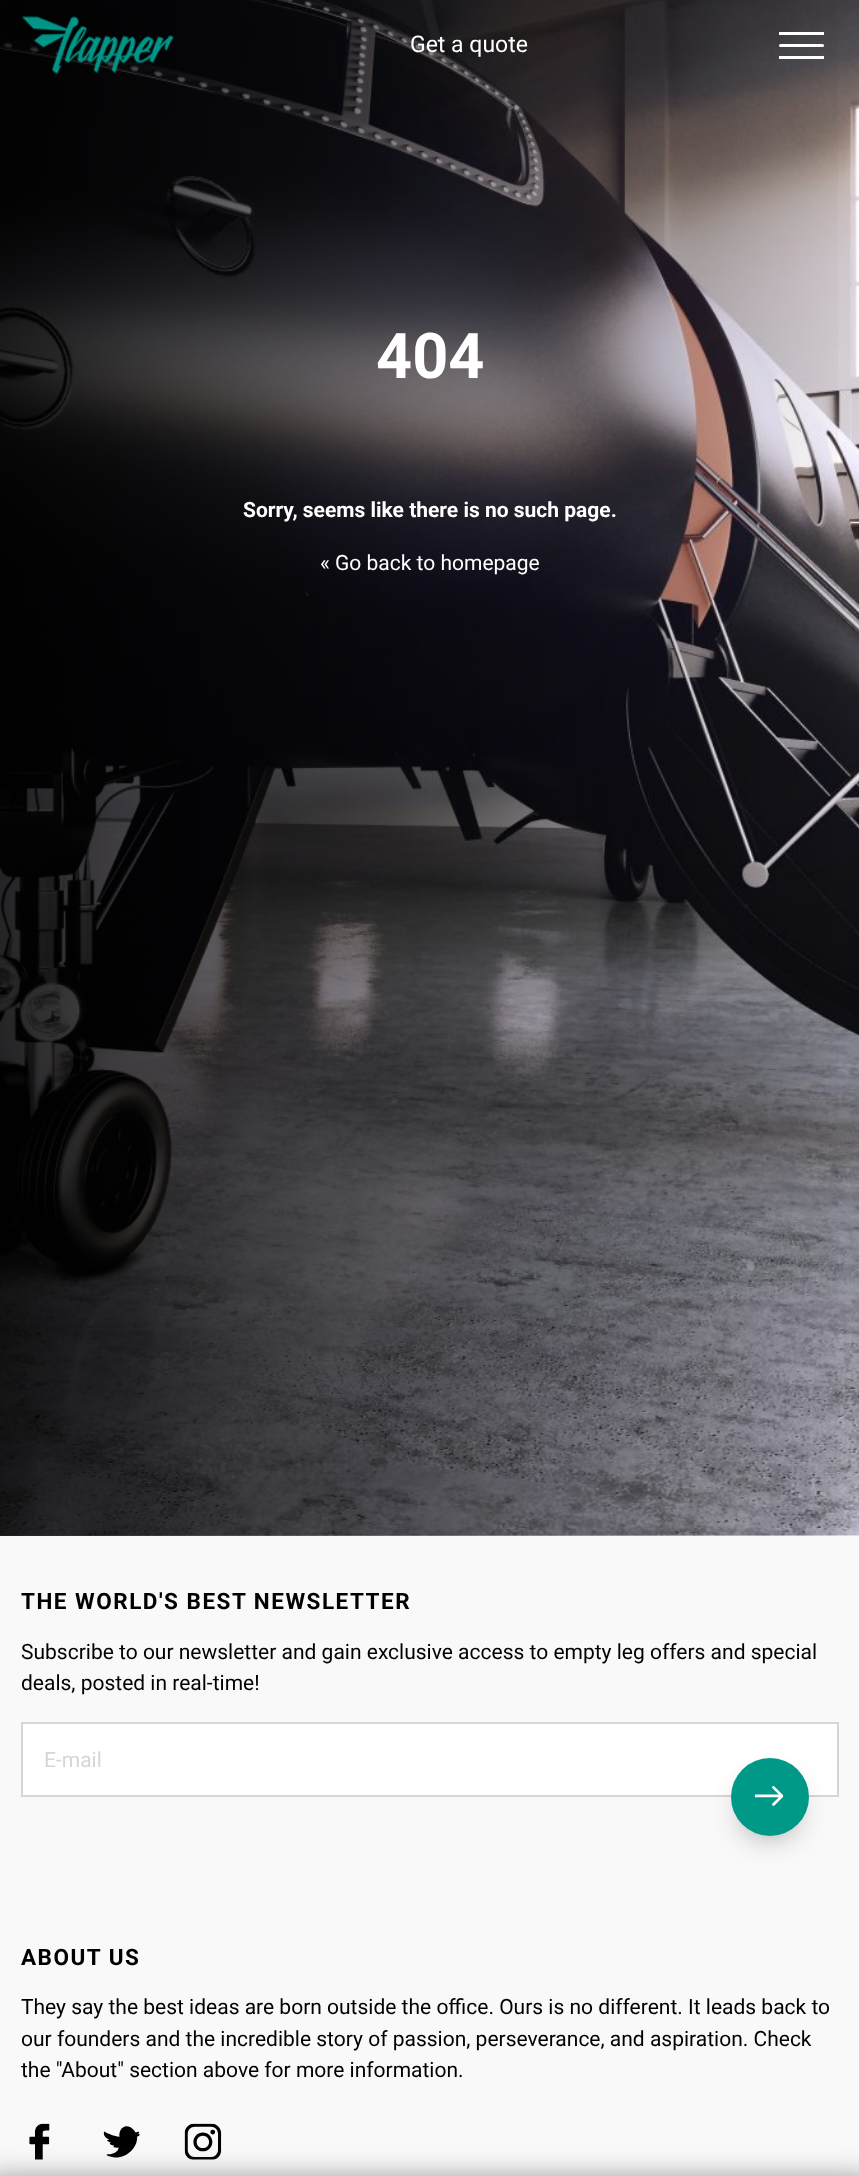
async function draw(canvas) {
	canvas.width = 859;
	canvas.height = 2176;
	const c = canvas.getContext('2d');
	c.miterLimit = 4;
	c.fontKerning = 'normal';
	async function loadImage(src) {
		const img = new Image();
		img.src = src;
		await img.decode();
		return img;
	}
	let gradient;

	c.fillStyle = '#fff';
	c.fillRect(0, 0, 859, 2176);
	c.drawImage(await loadImage('img2.png'), 0, 0, 859, 1536);
	gradient = c.createLinearGradient(0, 448, 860, 448);
	gradient.addColorStop(0, '#000000d9');
	gradient.addColorStop(1, '#00000000');
	c.fillStyle = gradient;
	c.fillRect(0, 0, 838, 1536);
	c.drawImage(await loadImage('img1.png'), 22, 16, 152, 59);
	c.font = '23px Roboto';
	c.fillStyle = '#fff';
	c.fillText('Get a quote', 410, 52);
	c.beginPath();
	c.roundRect(779, 44, 45, 3, 1.5);
	c.fill();
	c.fillRect(779, 32, 45, 3);
	c.fillRect(779, 56, 45, 3);
	c.font = 'bold 63px Roboto';
	c.fillText('404', 376, 378);
	c.font = 'bold 21px Roboto';
	c.fillText('Sorry, seems like there is no such page.', 243, 517);
	c.font = '21px Roboto';
	c.fillText('« Go back to homepage', 320, 570);
	c.fillStyle = '#f9f9f9';
	c.fillRect(0, 1536, 859, 640);
	c.letterSpacing = '1.5px';
	c.font = 'bold 22.5px Roboto';
	c.fillStyle = '#000';
	c.fillText('THE WORLD\'S BEST NEWSLETTER', 21, 1609);
	c.letterSpacing = '0px';
	c.font = '21px Roboto';
	c.fillText('Subscribe to our newsletter and gain exclusive access to empty leg offers and special', 21, 1659);
	c.fillText('deals, posted in real-time!', 21, 1690);
	c.fillStyle = '#fff';
	c.beginPath();
	c.rect(22, 1723, 816, 73);
	c.fill();
	c.strokeStyle = '#d6d6d6';
	c.lineWidth = 2;
	c.stroke();
	c.fillStyle = '#d6d6d6';
	c.fillText('E-mail', 44, 1767);
	c.fillStyle = '#000';
	c.filter = 'blur(18px)';
	c.beginPath();
	c.roundRect(753, 1793, 33, 33, 16.5);
	c.fill();
	c.filter = 'none';
	c.fillStyle = '#098';
	c.beginPath();
	c.arc(770, 1797, 39, 0, 2 * Math.PI);
	c.fill();
	c.drawImage(await loadImage('img3.png'), 754, 1786, 30, 20);
	c.letterSpacing = '1.5px';
	c.font = 'bold 22.5px Roboto';
	c.fillStyle = '#000';
	c.fillText('ABOUT US', 21, 1965);
	c.letterSpacing = '0px';
	c.font = '21px Roboto';
	for (const [text, x, y] of [
		['They say the best ideas are born outside the office. Ours is no different. It leads back to', 21, 2014],
		['our founders and the incredible story of passion, perseverance, and aspiration. Check', 21, 2046],
		['the "About" section above for more information.', 21, 2077],
	]) {
		c.fillText(text, x, y);
	}
	c.drawImage(await loadImage('img4.png'), 29, 2123, 21, 37);
	c.drawImage(await loadImage('img5.png'), 103, 2126, 37, 32);
	c.drawImage(await loadImage('img6.png'), 184, 2123, 38, 37);
	c.fillStyle = '#6c6c6c';
	c.filter = 'blur(16px)';
	c.beginPath();
	c.rect(-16, 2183, 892, 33);
	c.fill();
	c.filter = 'none';
}

draw(document.querySelector('canvas'));
